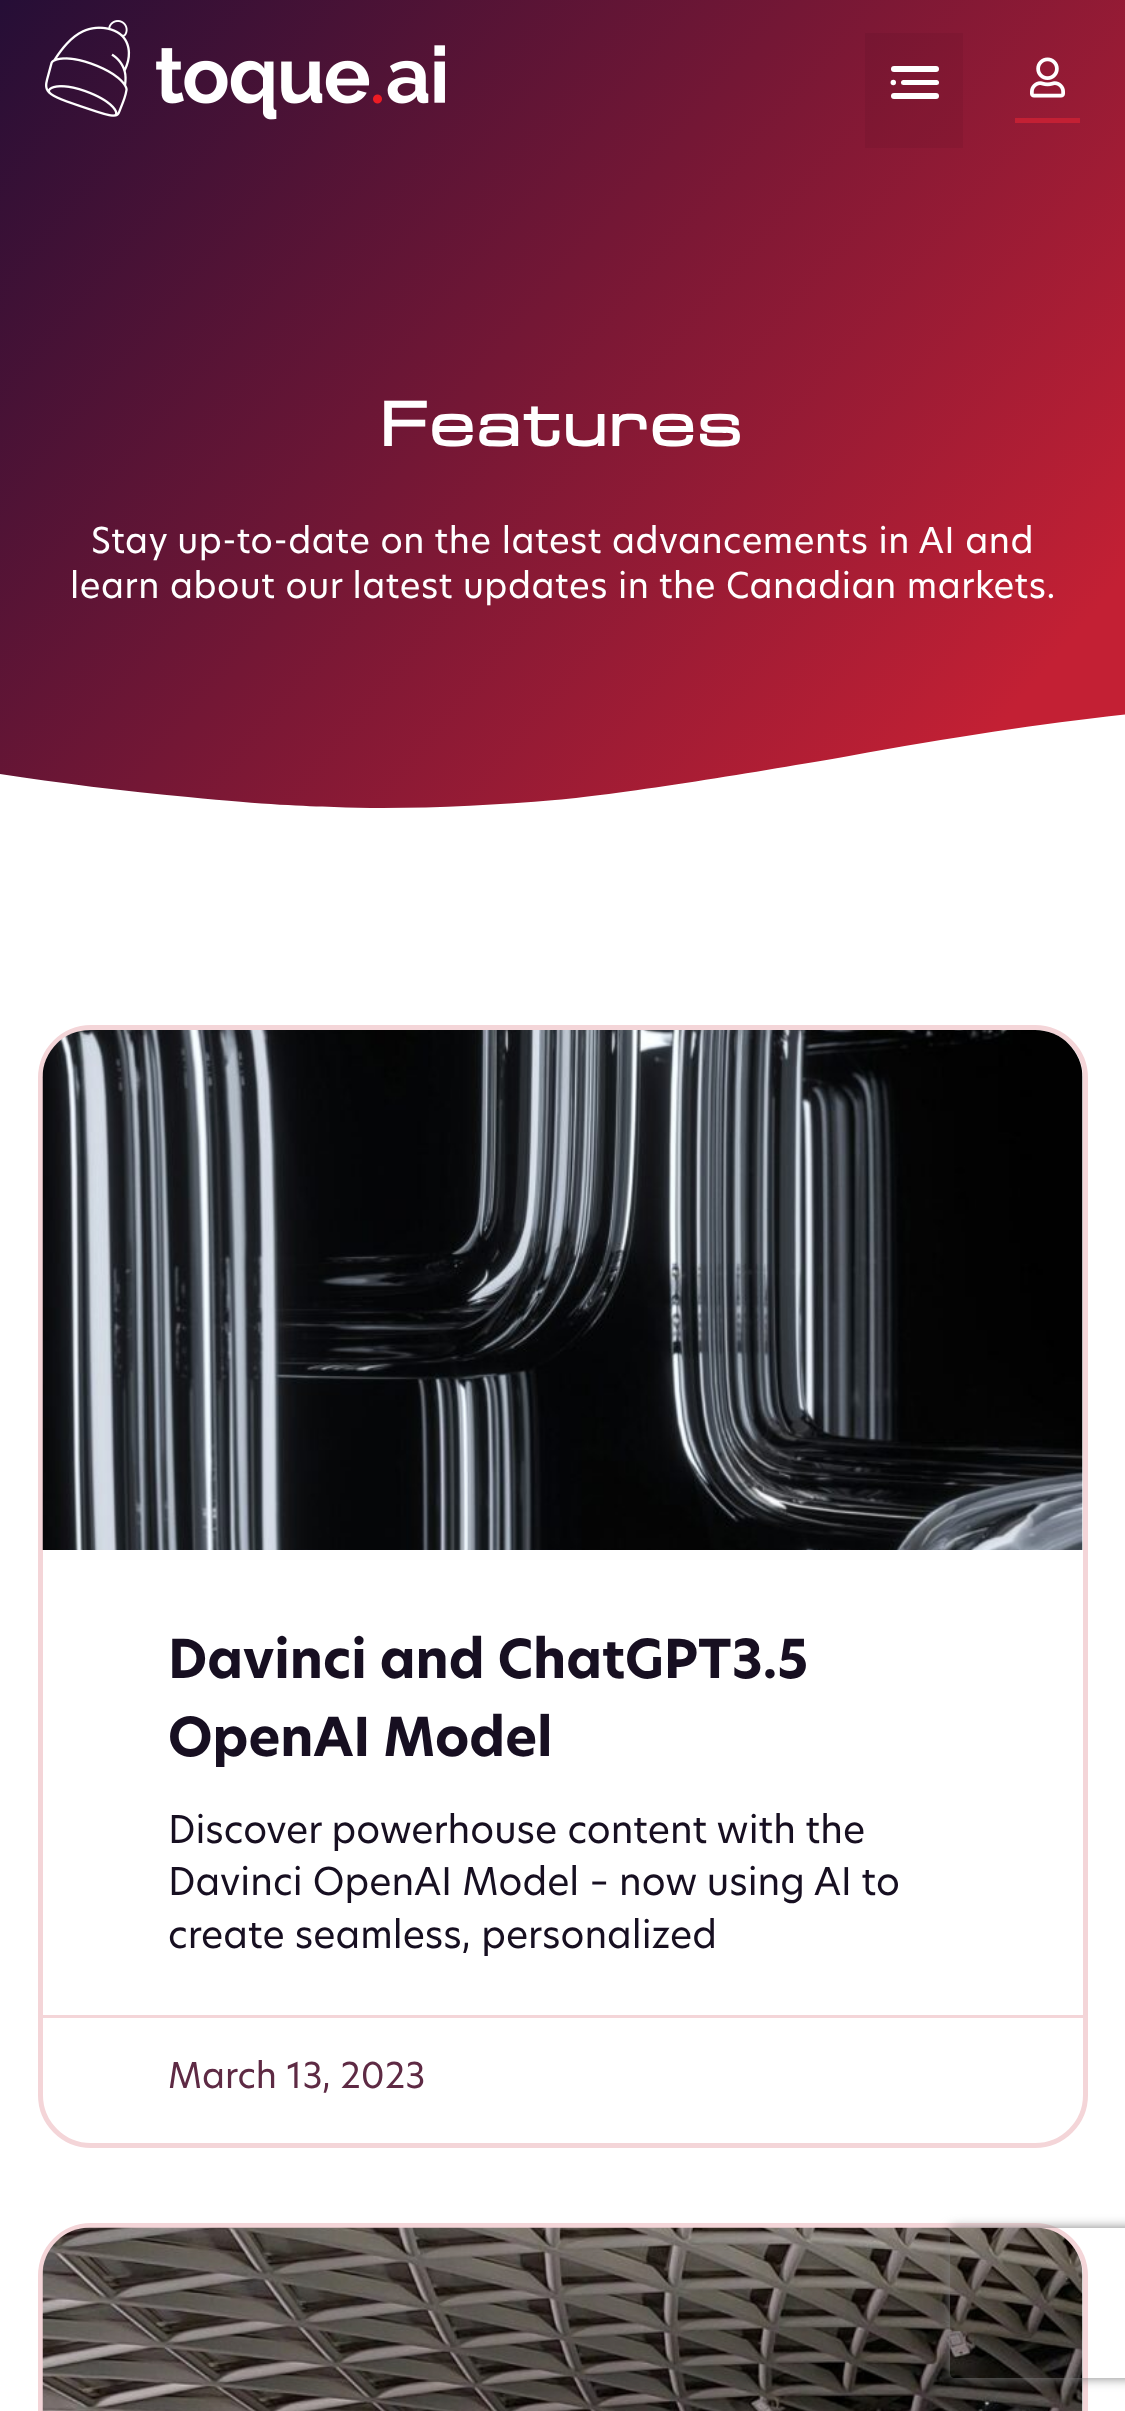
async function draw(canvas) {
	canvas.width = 1125;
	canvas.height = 2411;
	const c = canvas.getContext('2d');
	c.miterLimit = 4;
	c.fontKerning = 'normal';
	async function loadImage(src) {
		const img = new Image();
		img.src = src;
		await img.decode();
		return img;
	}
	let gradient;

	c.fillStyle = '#fff';
	c.fillRect(0, 0, 1125, 2411);
	gradient = c.createLinearGradient(32, -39, 1093, 851);
	gradient.addColorStop(0, '#250e36');
	gradient.addColorStop(0.89, '#c32034');
	c.fillStyle = gradient;
	c.fillRect(0, 0, 1125, 808);
	c.drawImage(await loadImage('img1.png'), 45, 20, 400, 100);
	c.fillStyle = '#0000000d';
	c.fillRect(865, 33, 98, 115);
	c.fillStyle = '#fff';
	c.beginPath();
	c.roundRect(891, 66, 48, 6, 3);
	c.fill();
	c.beginPath();
	c.arc(893.3, 82.5, 2.7, 0, 2 * Math.PI);
	c.fill();
	c.beginPath();
	c.roundRect(901, 80, 38, 5, 2.5);
	c.fill();
	c.beginPath();
	c.roundRect(891, 93, 48, 6, 3);
	c.fill();
	c.fillStyle = '#c32034';
	c.fillRect(1015, 118, 65, 5);
	c.drawImage(await loadImage('img2.png'), 1030, 57, 35, 41);
	c.letterSpacing = '5px';
	c.font = 'bold 65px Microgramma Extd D';
	c.fillStyle = '#fff';
	c.fillText('Features', 381, 446);
	c.letterSpacing = '0.5px';
	c.font = '35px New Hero';
	c.fillText('Stay up-to-date on the latest advancements in AI and', 91, 553);
	c.fillText('learn about our latest updates in the Canadian markets.', 70, 598);
	c.beginPath();
	c.moveTo(334, 807);
	c.bezierCurveTo(400, 810, 485, 806, 555, 800);
	c.bezierCurveTo(624, 794, 763, 771, 849, 756);
	c.bezierCurveTo(1071, 715, 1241, 700, 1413, 694);
	c.bezierCurveTo(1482, 691, 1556, 689, 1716, 697);
	c.bezierCurveTo(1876, 704, 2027, 729, 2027, 729);
	c.lineTo(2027, 815);
	c.lineTo(-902, 815);
	c.lineTo(-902, 777);
	c.bezierCurveTo(-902, 777, -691, 736, -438, 739);
	c.bezierCurveTo(-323, 740, -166, 747, -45, 767);
	c.bezierCurveTo(17, 777, 107, 790, 188, 797);
	c.bezierCurveTo(268, 805, 304, 806, 334, 807);
	c.closePath();
	c.fill();
	c.beginPath();
	c.roundRect(40.5, 1027.5, 1045, 1118, 50.5);
	c.strokeStyle = '#f4d5d8';
	c.lineWidth = 5;
	c.stroke();
	c.drawImage(await loadImage('img3.png'), 42, 1030, 1041, 520);
	c.letterSpacing = '0px';
	c.font = 'bold 52.5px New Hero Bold';
	c.fillStyle = '#170f21';
	c.fillText('Davinci and ChatGPT3.5', 168, 1678);
	c.fillText('OpenAI Model', 168, 1756);
	c.font = '37.5px New Hero';
	for (const [text, x, y] of [
		['Discover powerhouse content with the', 168, 1843],
		['Davinci OpenAI Model – now using AI to', 168, 1895],
		['create seamless, personalized', 168, 1948],
	]) {
		c.fillText(text, x, y);
	}
	c.fillStyle = '#f4d5d8';
	c.fillRect(43, 2015, 1040, 3);
	c.font = '35px New Hero';
	c.fillStyle = '#5e2a44';
	c.fillText('March 13, 2023', 168, 2088);
	c.beginPath();
	c.roundRect(40.5, 2225.5, 1045, 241, 50.5);
	c.stroke();
	c.drawImage(await loadImage('img4.png'), 42, 2227, 1041, 184);
	c.save();
	c.beginPath();
	c.moveTo(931, 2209);
	c.lineTo(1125, 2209);
	c.lineTo(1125, 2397);
	c.lineTo(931, 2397);
	c.closePath();
	c.moveTo(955, 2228);
	c.lineTo(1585, 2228);
	c.bezierCurveTo(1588, 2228, 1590, 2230, 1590, 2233);
	c.lineTo(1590, 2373);
	c.bezierCurveTo(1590, 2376, 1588, 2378, 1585, 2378);
	c.lineTo(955, 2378);
	c.bezierCurveTo(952, 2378, 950, 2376, 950, 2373);
	c.lineTo(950, 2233);
	c.bezierCurveTo(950, 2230, 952, 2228, 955, 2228);
	c.closePath();
	c.clip('evenodd');
	c.fillStyle = '#808080';
	c.filter = 'blur(6px)';
	c.beginPath();
	c.roundRect(950, 2228, 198, 150, 5);
	c.fill();
	c.filter = 'none';
	c.restore();
}

draw(document.querySelector('canvas'));
